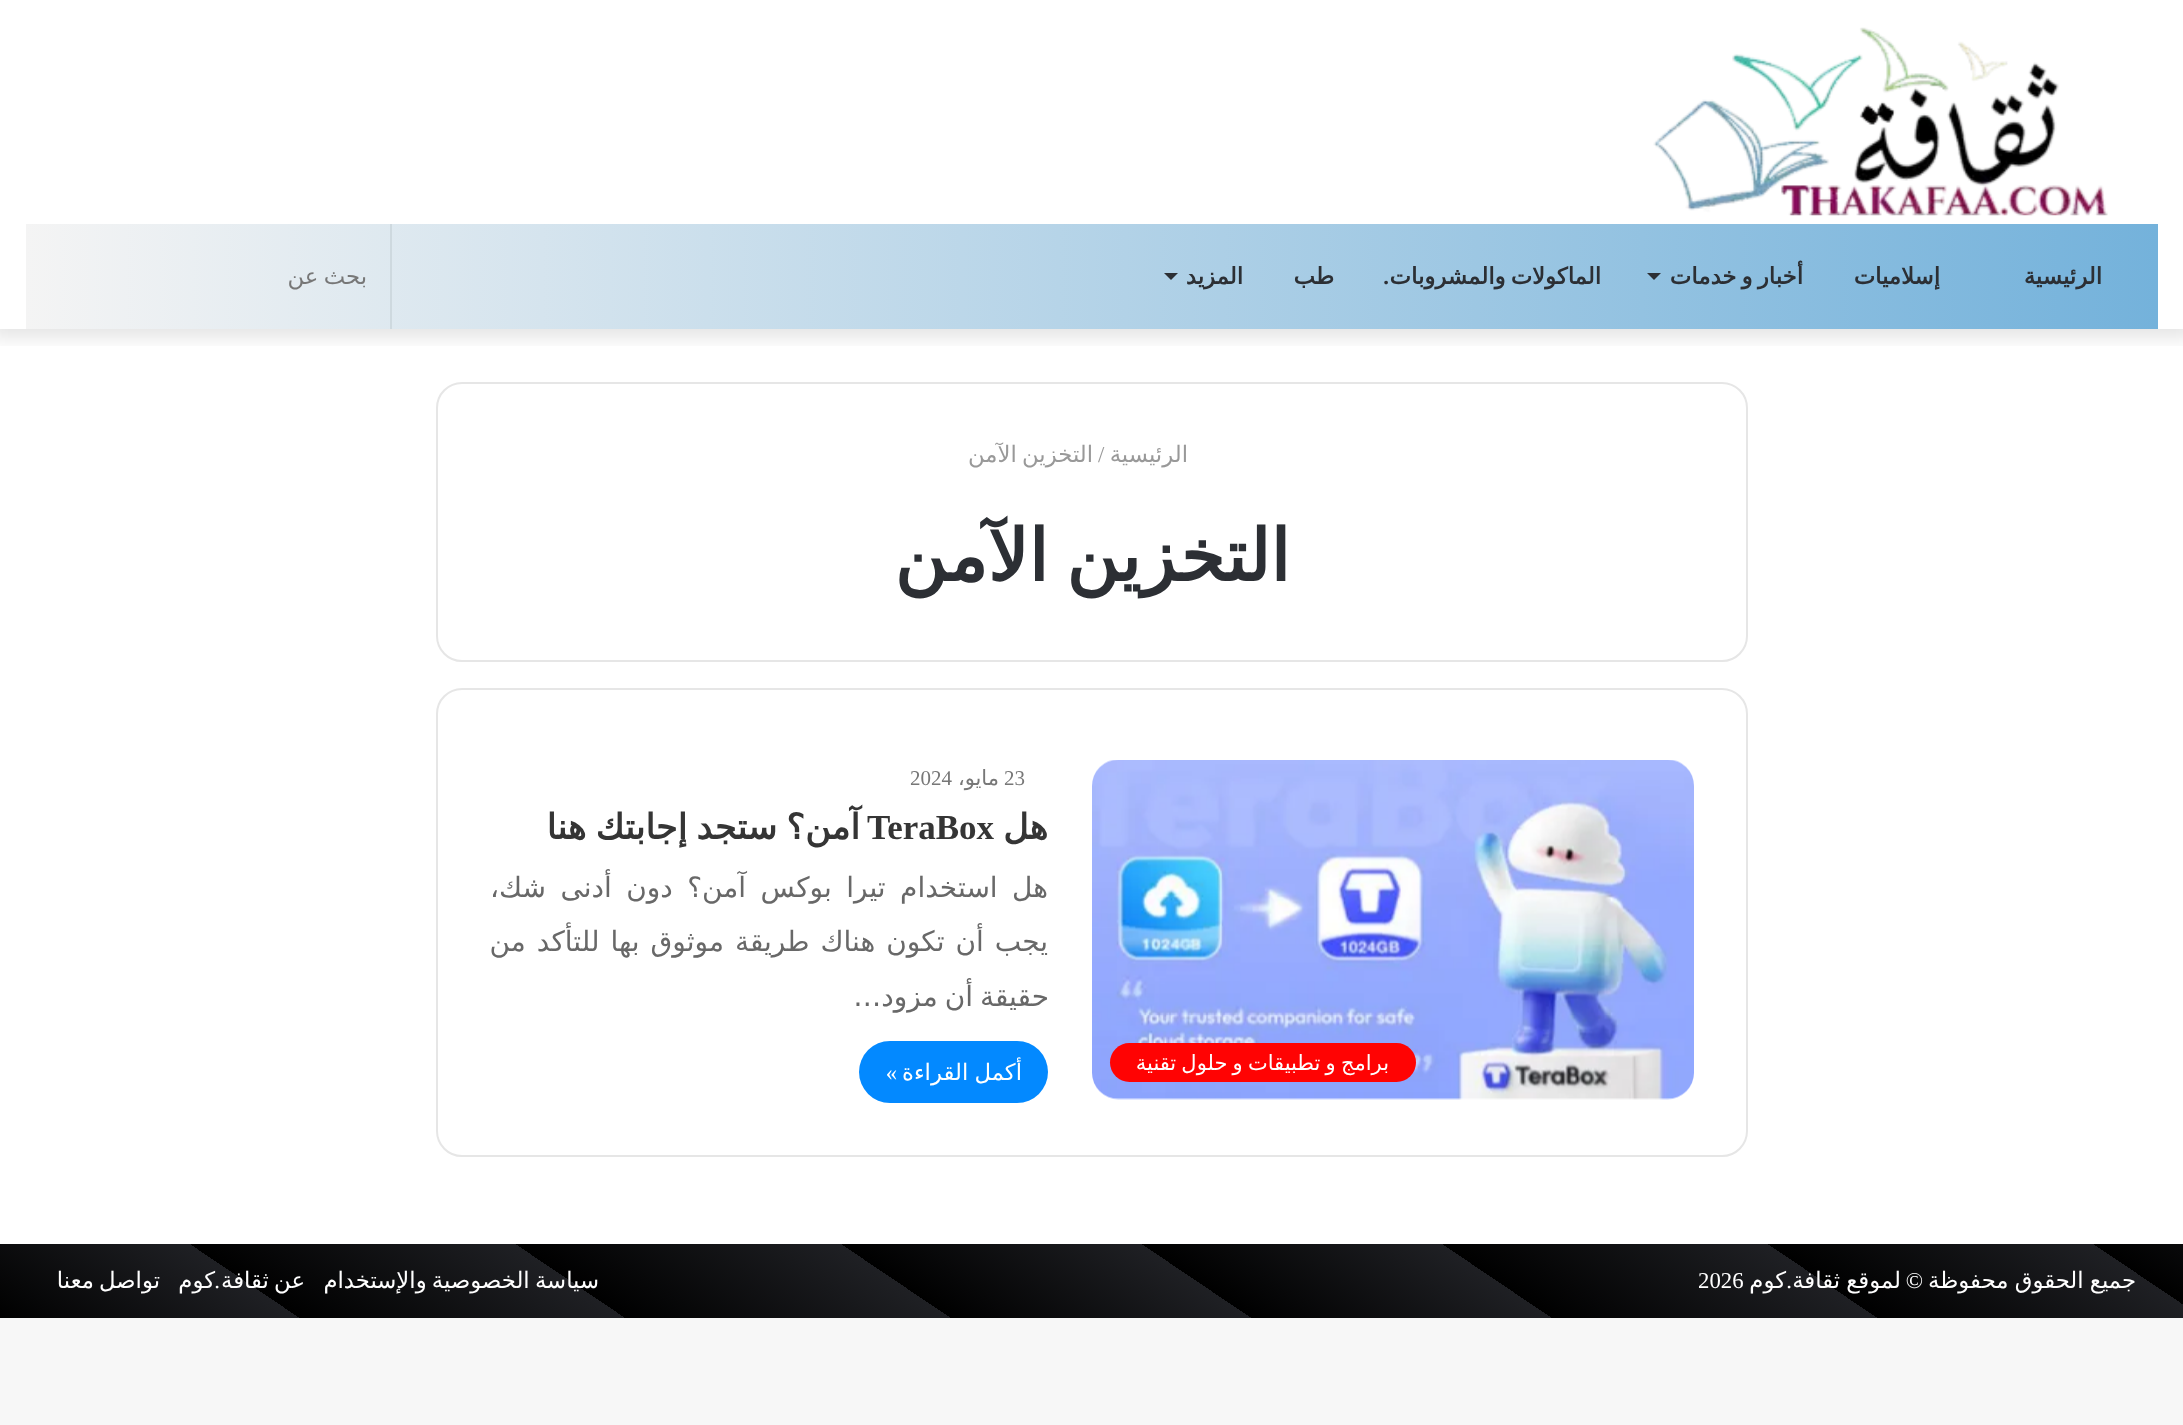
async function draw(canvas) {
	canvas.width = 2183;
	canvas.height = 1425;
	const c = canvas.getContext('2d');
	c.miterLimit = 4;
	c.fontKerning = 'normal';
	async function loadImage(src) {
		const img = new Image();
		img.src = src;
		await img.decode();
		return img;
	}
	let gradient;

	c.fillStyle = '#f7f7f7';
	c.fillRect(0, 0, 2183, 1425);
	c.fillStyle = '#fff';
	c.fillRect(0, 0, 2183, 1244);
	c.save();
	c.beginPath();
	c.rect(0, 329, 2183, 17);
	c.clip();
	c.fillStyle = '#0000001a';
	c.filter = 'blur(9px)';
	c.beginPath();
	c.rect(-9, -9, 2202, 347);
	c.fill();
	c.filter = 'none';
	c.restore();
	c.drawImage(await loadImage('img1.png'), 1653, 27, 455, 189);
	gradient = c.createLinearGradient(26, 277, 2158, 276);
	gradient.addColorStop(0, '#f4f4f4');
	gradient.addColorStop(1, '#74b2db');
	c.fillStyle = gradient;
	c.fillRect(26, 224, 2132, 105);
	c.direction = 'rtl';
	c.font = 'bold 22.75px DejaVu Sans';
	c.fillStyle = '#2c2f34';
	c.fillText('الرئيسية', 2102, 284);
	c.fillText('إسلاميات', 1940, 284);
	c.wordSpacing = '-2px';
	c.fillText('أخبار و خدمات', 1803, 284);
	c.beginPath();
	c.moveTo(1647, 273);
	c.lineTo(1661, 273);
	c.lineTo(1654, 280);
	c.closePath();
	c.fill();
	c.fillText('الماكولات والمشروبات', 1601, 284);
	c.wordSpacing = '0px';
	c.font = 'bold 22.75px Liberation Serif';
	c.fillText('.', 1389, 284);
	c.font = 'bold 22.75px DejaVu Sans';
	c.fillText('طب', 1334, 284);
	c.fillText('المزيد', 1243, 284);
	c.beginPath();
	c.moveTo(1164, 273);
	c.lineTo(1178, 273);
	c.lineTo(1171, 280);
	c.closePath();
	c.fill();
	c.fillStyle = '#ced9df';
	c.fillRect(390, 224, 2, 105);
	c.wordSpacing = '-2px';
	c.font = '22.75px DejaVu Sans';
	c.fillStyle = '#777';
	c.fillText('بحث عن', 367, 284);
	c.beginPath();
	c.roundRect(437, 383, 1310, 278, 25);
	c.strokeStyle = '#e6e6e6';
	c.lineWidth = 2;
	c.stroke();
	c.wordSpacing = '0px';
	c.fillStyle = '#999';
	c.fillText('الرئيسية', 1188, 462);
	c.direction = 'ltr';
	c.font = '22.75px Liberation Serif';
	c.fillText('/', 1098, 462);
	c.wordSpacing = '-2px';
	c.direction = 'rtl';
	c.font = '22.75px DejaVu Sans';
	c.fillText('التخزين الآمن', 1093, 462);
	c.wordSpacing = '-5px';
	c.font = 'bold 71.75px DejaVu Sans';
	c.fillStyle = '#2c2f34';
	c.fillText('التخزين الآمن', 1290, 581);
	c.beginPath();
	c.roundRect(437, 689, 1310, 467, 25);
	c.stroke();
	c.drawImage(await loadImage('img2.png'), 1092, 760, 602, 340);
	c.fillStyle = '#ff0303';
	c.beginPath();
	c.roundRect(1110, 1043, 306, 39, 19.5);
	c.fill();
	c.wordSpacing = '-1.5px';
	c.font = '21px DejaVu Sans';
	c.fillStyle = '#fff';
	c.fillText('برامج و تطبيقات و حلول تقنية', 1389, 1070);
	c.wordSpacing = '0px';
	c.direction = 'ltr';
	c.font = '21px Liberation Serif';
	c.fillStyle = '#777';
	c.fillText('23', 1004, 785);
	c.direction = 'rtl';
	c.font = '21px DejaVu Sans';
	c.fillText('مايو،', 999, 785);
	c.direction = 'ltr';
	c.font = '21px Liberation Serif';
	c.fillText('2024', 910, 785);
	c.direction = 'rtl';
	c.font = 'bold 35px DejaVu Sans';
	c.fillStyle = '#353535';
	c.fillText('هل', 1048, 839);
	c.direction = 'ltr';
	c.font = 'bold 35px Liberation Serif';
	c.fillText('TeraBox', 867, 839);
	c.wordSpacing = '-2px';
	c.direction = 'rtl';
	c.font = 'bold 35px DejaVu Sans';
	c.fillText('آمن؟ ستجد إجابتك هنا', 860, 839);
	c.wordSpacing = '5.5px';
	c.font = '28px DejaVu Sans';
	c.fillStyle = '#686868';
	c.fillText('هل استخدام تيرا بوكس آمن؟ دون أدنى شك،', 1048, 897);
	c.wordSpacing = '2px';
	c.fillText('يجب أن تكون هناك طريقة موثوق بها للتأكد من', 1048, 951);
	c.wordSpacing = '-2px';
	c.fillText('حقيقة أن مزود…', 1049, 1006);
	c.fillStyle = '#0389ff';
	c.beginPath();
	c.roundRect(859, 1041, 189, 62, 31);
	c.fill();
	c.wordSpacing = '-1px';
	c.font = '22.75px DejaVu Sans';
	c.fillStyle = '#fff';
	c.fillText('أكمل القراءة', 1022, 1080);
	c.wordSpacing = '0px';
	c.font = '22.75px Liberation Serif';
	c.fillText('»', 897, 1080);
	gradient = c.createLinearGradient(733, 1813, 1516, 652);
	gradient.addColorStop(0, '#000');
	gradient.addColorStop(0.12, '#1f2024');
	gradient.addColorStop(0.12, '#000');
	gradient.addColorStop(0.25, '#1f2024');
	gradient.addColorStop(0.25, '#000');
	gradient.addColorStop(0.38, '#1f2024');
	gradient.addColorStop(0.38, '#000');
	gradient.addColorStop(0.5, '#1f2024');
	gradient.addColorStop(0.5, '#000');
	gradient.addColorStop(0.62, '#1f2024');
	gradient.addColorStop(0.62, '#000');
	gradient.addColorStop(0.75, '#1f2024');
	gradient.addColorStop(0.75, '#000');
	gradient.addColorStop(0.88, '#1f2024');
	gradient.addColorStop(0.88, '#000');
	gradient.addColorStop(1, '#1f2024');
	c.fillStyle = gradient;
	c.fillRect(0, 1244, 2183, 74);
	c.wordSpacing = '-1px';
	c.font = '22.75px DejaVu Sans';
	c.fillStyle = '#fff';
	c.fillText('جميع الحقوق محفوظة', 2136, 1288);
	c.wordSpacing = '0px';
	c.font = '22.75px Liberation Serif';
	c.fillText('©', 1923, 1288);
	c.font = '22.75px DejaVu Sans';
	c.fillText('لموقع', 1901, 1288);
	c.fillText('ثقافة', 1840, 1288);
	c.font = '22.75px Liberation Serif';
	c.fillText('.', 1792, 1288);
	c.font = '22.75px DejaVu Sans';
	c.fillText('كوم', 1786, 1288);
	c.direction = 'ltr';
	c.font = '22.75px Liberation Serif';
	c.fillText('2026', 1698, 1288);
	c.wordSpacing = '-2px';
	c.direction = 'rtl';
	c.font = '22.75px DejaVu Sans';
	c.fillText('سياسة الخصوصية والإستخدام', 599, 1288);
	c.fillText('عن ثقافة', 305, 1288);
	c.wordSpacing = '0px';
	c.font = '22.75px Liberation Serif';
	c.fillText('.', 220, 1288);
	c.font = '22.75px DejaVu Sans';
	c.fillText('كوم', 215, 1288);
	c.wordSpacing = '-2px';
	c.fillText('تواصل معنا', 160, 1288);
}

draw(document.querySelector('canvas'));
